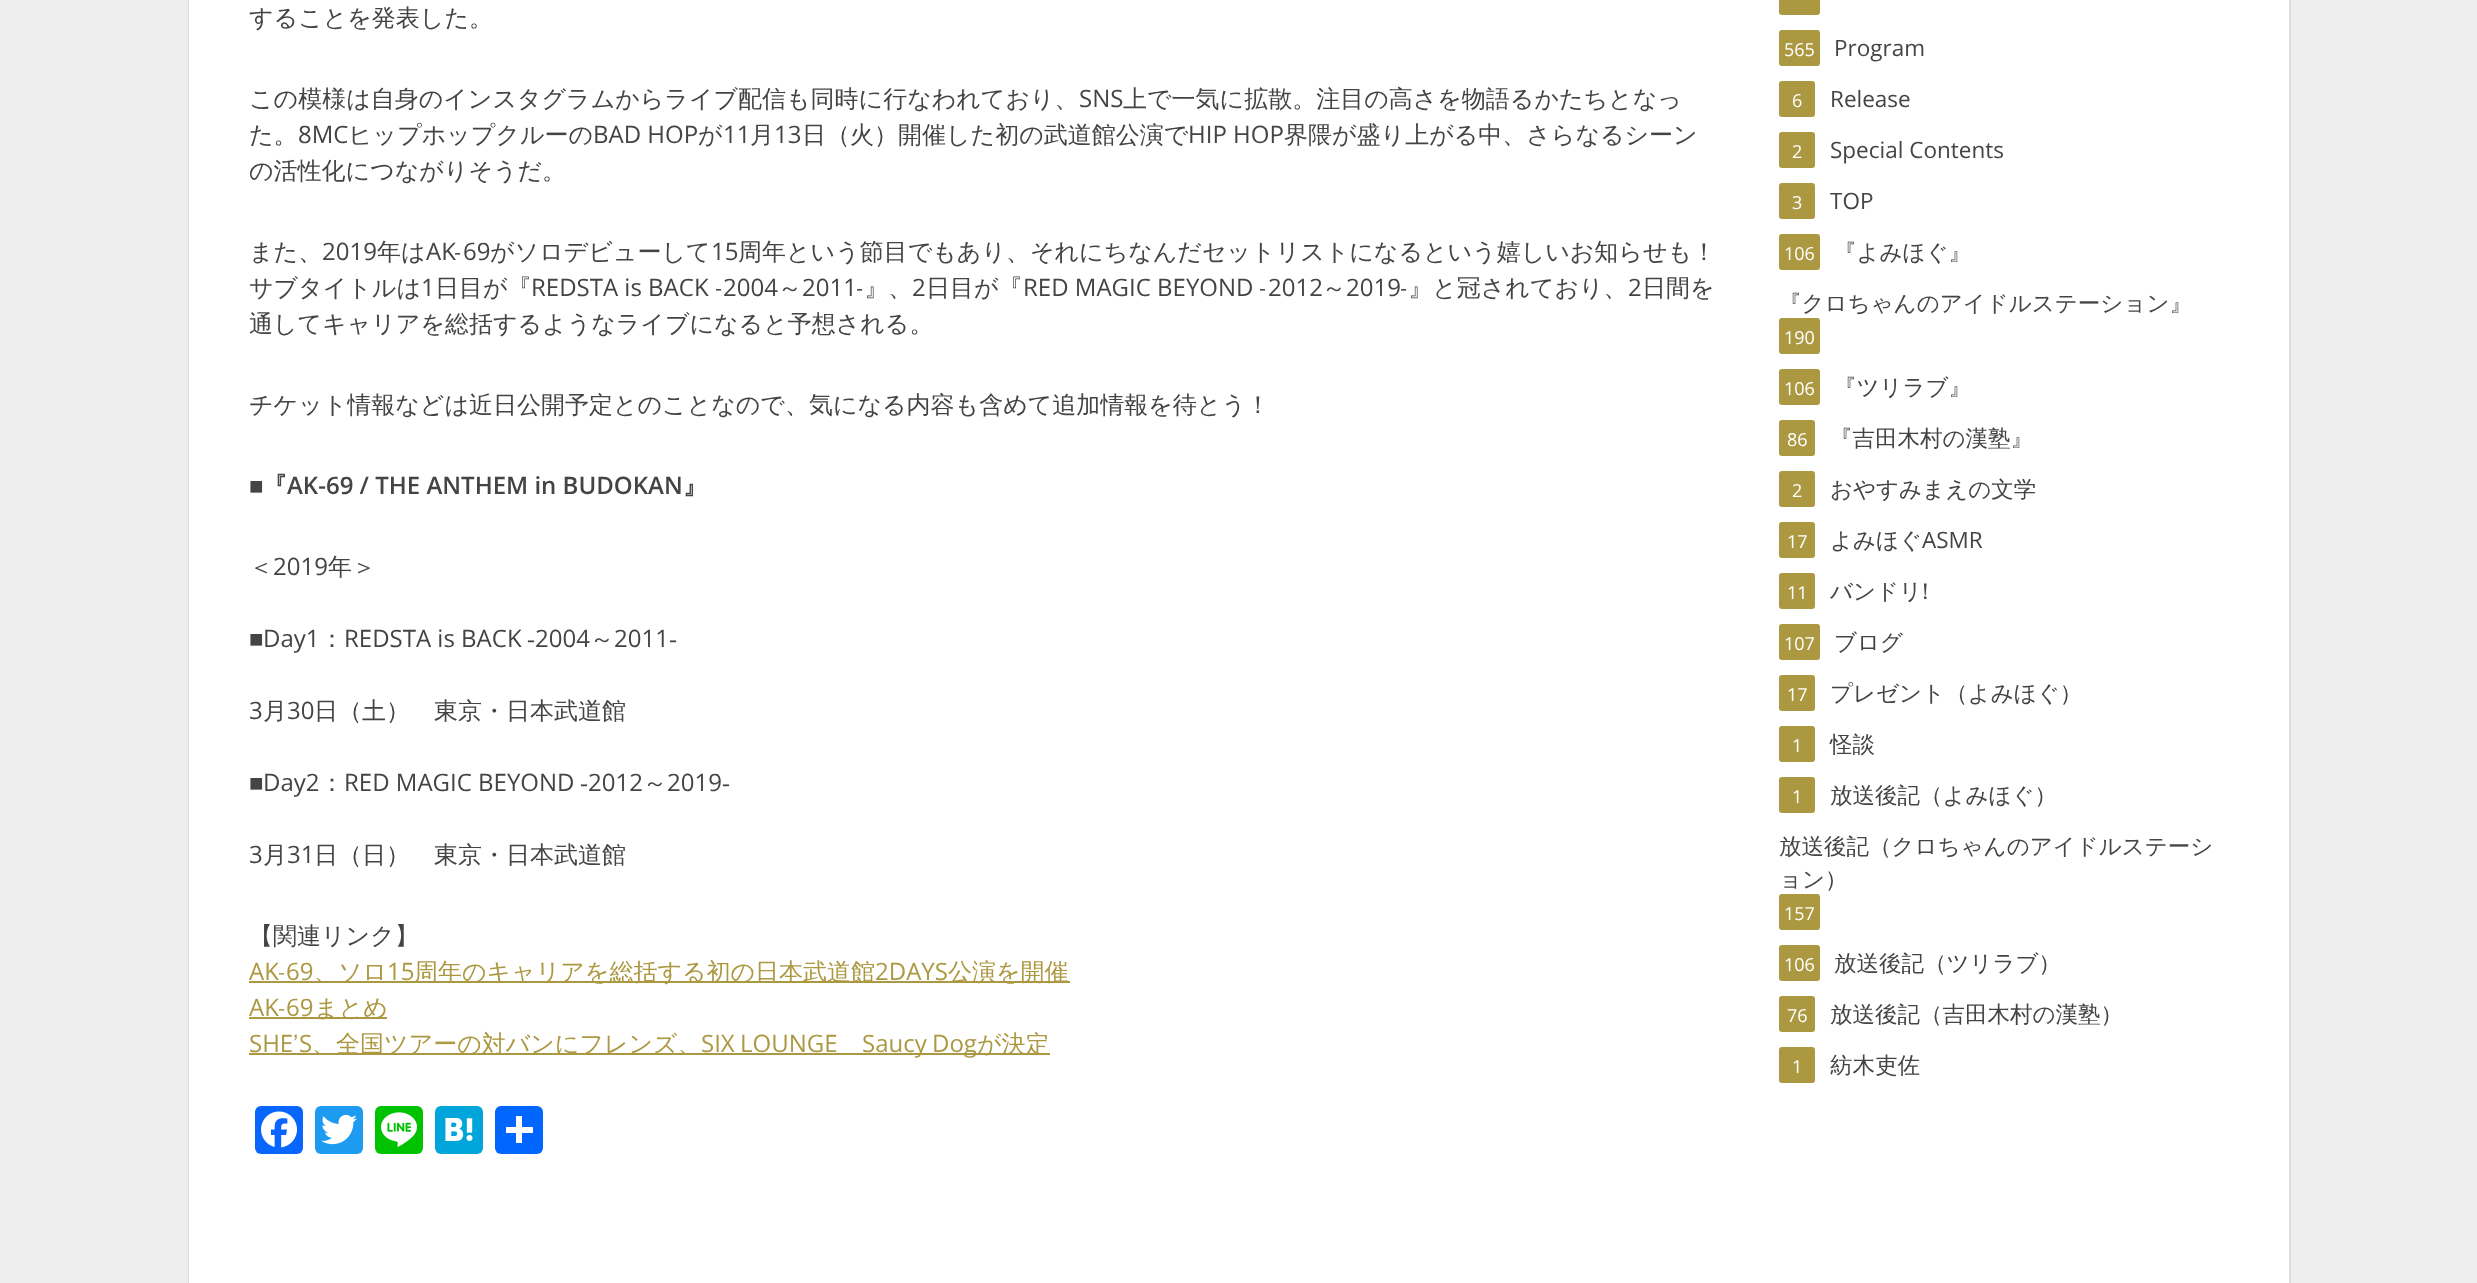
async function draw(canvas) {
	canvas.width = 2477;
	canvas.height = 1283;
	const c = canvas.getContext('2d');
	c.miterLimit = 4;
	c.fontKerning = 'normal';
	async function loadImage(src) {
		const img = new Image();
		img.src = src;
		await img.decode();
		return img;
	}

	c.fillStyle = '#eee';
	c.fillRect(0, 0, 2477, 1283);
	c.strokeStyle = '#ddd';
	c.lineWidth = 2;
	c.strokeRect(189, -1, 2101, 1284);
	c.fillStyle = '#fff';
	c.fillRect(189, 0, 2100, 1283);
	c.font = '500 24px WenQuanYi Zen Hei';
	c.fillStyle = '#444';
	c.fillText('することを発表した。', 249, 26);
	c.fillText('この模様は自身のインスタグラムからライブ配信も同時に行なわれており、', 249, 107);
	c.font = '24px Open Sans';
	c.fillText('SNS', 1079, 107);
	c.font = '500 24px WenQuanYi Zen Hei';
	c.fillText('上で一気に拡散。注目の高さを物語るかたちとなっ', 1123, 107);
	c.fillText('た。', 249, 143);
	c.font = '24px Open Sans';
	c.fillText('8MC', 298, 143);
	c.font = '500 24px WenQuanYi Zen Hei';
	c.fillText('ヒップホップクルーの', 348, 143);
	c.font = '24px Open Sans';
	c.fillText('BAD HOP', 593, 143);
	c.font = '500 24px WenQuanYi Zen Hei';
	c.fillText('が', 698, 143);
	c.font = '24px Open Sans';
	c.fillText('11', 723, 143);
	c.font = '500 24px WenQuanYi Zen Hei';
	c.fillText('月', 750, 143);
	c.font = '24px Open Sans';
	c.fillText('13', 774, 143);
	c.font = '500 24px WenQuanYi Zen Hei';
	c.fillText('日（火）開催した初の武道館公演で', 802, 143);
	c.font = '24px Open Sans';
	c.fillText('HIP HOP', 1188, 143);
	c.font = '500 24px WenQuanYi Zen Hei';
	for (const [text, x, y] of [
		['界隈が盛り上がる中、さらなるシーン', 1284, 143],
		['の活性化につながりそうだ。', 249, 179],
		['また、', 249, 260],
	]) {
		c.fillText(text, x, y);
	}
	c.font = '24px Open Sans';
	c.fillText('2019', 322, 260);
	c.font = '500 24px WenQuanYi Zen Hei';
	c.fillText('年は', 377, 260);
	c.font = '24px Open Sans';
	c.fillText('AK', 426, 260);
	c.font = '500 24px WenQuanYi Zen Hei';
	c.fillText('-', 455, 260);
	c.font = '24px Open Sans';
	c.fillText('69', 463, 260);
	c.font = '500 24px WenQuanYi Zen Hei';
	c.fillText('がソロデビューして', 490, 260);
	c.font = '24px Open Sans';
	c.fillText('15', 711, 260);
	c.font = '500 24px WenQuanYi Zen Hei';
	c.fillText('周年という節目でもあり、それにちなんだセットリストになるという嬉しいお知らせも！', 738, 260);
	c.fillText('サブタイトルは', 249, 296);
	c.font = '24px Open Sans';
	c.fillText('1', 421, 296);
	c.font = '500 24px WenQuanYi Zen Hei';
	c.fillText('日目が『', 435, 296);
	c.font = '24px Open Sans';
	c.fillText('REDSTA is BACK', 531, 296);
	c.font = '500 24px WenQuanYi Zen Hei';
	c.fillText('-', 716, 296);
	c.font = '24px Open Sans';
	c.fillText('2004', 723, 296);
	c.font = '500 24px WenQuanYi Zen Hei';
	c.fillText('～', 778, 296);
	c.font = '24px Open Sans';
	c.fillText('2011', 802, 296);
	c.font = '500 24px WenQuanYi Zen Hei';
	c.fillText('-』、', 857, 296);
	c.font = '24px Open Sans';
	c.fillText('2', 912, 296);
	c.font = '500 24px WenQuanYi Zen Hei';
	c.fillText('日目が『', 926, 296);
	c.font = '24px Open Sans';
	c.fillText('RED MAGIC BEYOND', 1023, 296);
	c.font = '500 24px WenQuanYi Zen Hei';
	c.fillText('-', 1260, 296);
	c.font = '24px Open Sans';
	c.fillText('2012', 1268, 296);
	c.font = '500 24px WenQuanYi Zen Hei';
	c.fillText('～', 1322, 296);
	c.font = '24px Open Sans';
	c.fillText('2019', 1346, 296);
	c.font = '500 24px WenQuanYi Zen Hei';
	c.fillText('-』と冠されており、', 1401, 296);
	c.font = '24px Open Sans';
	c.fillText('2', 1628, 296);
	c.font = '500 24px WenQuanYi Zen Hei';
	for (const [text, x, y] of [
		['日間を', 1642, 296],
		['通してキャリアを総括するようなライブになると予想される。', 249, 332],
		['チケット情報などは近日公開予定とのことなので、気になる内容も含めて追加情報を待とう！', 249, 413],
	]) {
		c.fillText(text, x, y);
	}
	c.font = 'bold 24px Liberation Serif';
	c.fillText('■', 249, 494);
	c.font = 'bold 24px WenQuanYi Zen Hei';
	c.fillText('『', 263, 494);
	c.font = '600 24px Open Sans';
	c.fillText('AK-69 / THE ANTHEM in BUDOKAN', 287, 494);
	c.font = 'bold 24px WenQuanYi Zen Hei';
	c.fillText('』', 683, 494);
	c.font = '500 24px WenQuanYi Zen Hei';
	c.fillText('＜', 249, 575);
	c.font = '24px Open Sans';
	c.fillText('2019', 273, 575);
	c.font = '500 24px WenQuanYi Zen Hei';
	c.fillText('年＞', 328, 575);
	c.font = '24px Liberation Serif';
	c.fillText('■', 249, 647);
	c.font = '24px Open Sans';
	c.fillText('Day1', 263, 647);
	c.font = '500 24px WenQuanYi Zen Hei';
	c.fillText('：', 320, 647);
	c.font = '24px Open Sans';
	c.fillText('REDSTA is BACK', 344, 647);
	c.font = '24px Liberation Serif';
	c.fillText('-', 527, 647);
	c.font = '24px Open Sans';
	c.fillText('2004', 535, 647);
	c.font = '500 24px WenQuanYi Zen Hei';
	c.fillText('～', 590, 647);
	c.font = '24px Open Sans';
	c.fillText('2011', 614, 647);
	c.font = '24px Liberation Serif';
	c.fillText('-', 669, 647);
	c.font = '24px Open Sans';
	c.fillText('3', 249, 719);
	c.font = '500 24px WenQuanYi Zen Hei';
	c.fillText('月', 263, 719);
	c.font = '24px Open Sans';
	c.fillText('30', 287, 719);
	c.font = '500 24px WenQuanYi Zen Hei';
	c.fillText('日（土）　東京・日本武道館', 314, 719);
	c.font = '24px Liberation Serif';
	c.fillText('■', 249, 791);
	c.font = '24px Open Sans';
	c.fillText('Day2', 263, 791);
	c.font = '500 24px WenQuanYi Zen Hei';
	c.fillText('：', 320, 791);
	c.font = '24px Open Sans';
	c.fillText('RED MAGIC BEYOND', 344, 791);
	c.font = '24px Liberation Serif';
	c.fillText('-', 580, 791);
	c.font = '24px Open Sans';
	c.fillText('2012', 588, 791);
	c.font = '500 24px WenQuanYi Zen Hei';
	c.fillText('～', 643, 791);
	c.font = '24px Open Sans';
	c.fillText('2019', 667, 791);
	c.font = '24px Liberation Serif';
	c.fillText('-', 722, 791);
	c.font = '24px Open Sans';
	c.fillText('3', 249, 863);
	c.font = '500 24px WenQuanYi Zen Hei';
	c.fillText('月', 263, 863);
	c.font = '24px Open Sans';
	c.fillText('31', 287, 863);
	c.font = '500 24px WenQuanYi Zen Hei';
	c.fillText('日（日）　東京・日本武道館', 314, 863);
	c.fillText('【関連リンク】', 249, 944);
	c.font = '24px Open Sans';
	c.fillStyle = '#ac9841';
	c.fillText('AK', 249, 980);
	c.font = '500 24px WenQuanYi Zen Hei';
	c.fillText('-', 279, 980);
	c.fillRect(249, 981, 821, 2);
	c.font = '24px Open Sans';
	c.fillText('69', 286, 980);
	c.font = '500 24px WenQuanYi Zen Hei';
	c.fillText('、ソロ', 314, 980);
	c.font = '24px Open Sans';
	c.fillText('15', 387, 980);
	c.font = '500 24px WenQuanYi Zen Hei';
	c.fillText('周年のキャリアを総括する初の日本武道館', 414, 980);
	c.font = '24px Open Sans';
	c.fillText('2DAYS', 875, 980);
	c.font = '500 24px WenQuanYi Zen Hei';
	c.fillText('公演を開催', 948, 980);
	c.font = '24px Open Sans';
	c.fillText('AK', 249, 1016);
	c.font = '500 24px WenQuanYi Zen Hei';
	c.fillText('-', 279, 1016);
	c.fillRect(249, 1017, 138, 2);
	c.font = '24px Open Sans';
	c.fillText('69', 286, 1016);
	c.font = '500 24px WenQuanYi Zen Hei';
	c.fillText('まとめ', 314, 1016);
	c.font = '24px Open Sans';
	c.fillText('SHE', 249, 1052);
	c.font = '500 24px WenQuanYi Zen Hei';
	c.fillText('’', 293, 1052);
	c.font = '24px Open Sans';
	c.fillText('S', 299, 1052);
	c.fillRect(249, 1053, 801, 2);
	c.font = '500 24px WenQuanYi Zen Hei';
	c.fillText('、全国ツアーの対バンにフレンズ、', 312, 1052);
	c.wordSpacing = '-1px';
	c.font = '24px Open Sans';
	c.fillText('SIX LOUNGE', 701, 1052);
	c.fillText('Saucy Dog', 862, 1052);
	c.wordSpacing = '0px';
	c.font = '500 24px WenQuanYi Zen Hei';
	c.fillText('が決定', 977, 1052);
	c.fillStyle = '#0866ff';
	c.beginPath();
	c.roundRect(255, 1106, 48, 48, 6);
	c.fill();
	c.drawImage(await loadImage('img1.png'), 261, 1111, 36, 37);
	c.fillStyle = '#1d9bf0';
	c.beginPath();
	c.roundRect(315, 1106, 48, 48, 6);
	c.fill();
	c.drawImage(await loadImage('img2.png'), 321, 1114, 36, 31);
	c.fillStyle = '#00c300';
	c.beginPath();
	c.roundRect(375, 1106, 48, 48, 6);
	c.fill();
	c.drawImage(await loadImage('img3.png'), 381, 1112, 36, 35);
	c.fillStyle = '#00a6db';
	c.beginPath();
	c.roundRect(435, 1106, 48, 48, 6);
	c.fill();
	c.drawImage(await loadImage('img4.png'), 445, 1118, 28, 23);
	c.fillStyle = '#0166ff';
	c.beginPath();
	c.roundRect(495, 1106, 48, 48, 6);
	c.fill();
	c.fillStyle = '#fff';
	c.fillRect(516, 1116, 6, 27);
	c.fillRect(506, 1127, 27, 6);
	c.fillStyle = '#ac9841';
	c.beginPath();
	c.roundRect(1779, -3, 41, 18, 3);
	c.fill();
	c.beginPath();
	c.roundRect(1779, 30, 41, 36, 3);
	c.fill();
	c.font = '18px Open Sans';
	c.fillStyle = '#fff';
	c.fillText('565', 1784, 56);
	c.font = '22.5px Open Sans';
	c.fillStyle = '#444';
	c.fillText('Program', 1834, 56);
	c.fillStyle = '#ac9841';
	c.beginPath();
	c.roundRect(1779, 81, 36, 36, 3);
	c.fill();
	c.font = '18px Open Sans';
	c.fillStyle = '#fff';
	c.fillText('6', 1792, 107);
	c.font = '22.5px Open Sans';
	c.fillStyle = '#444';
	c.fillText('Release', 1830, 107);
	c.fillStyle = '#ac9841';
	c.beginPath();
	c.roundRect(1779, 132, 36, 36, 3);
	c.fill();
	c.font = '18px Open Sans';
	c.fillStyle = '#fff';
	c.fillText('2', 1792, 158);
	c.font = '22.5px Open Sans';
	c.fillStyle = '#444';
	c.fillText('Special Contents', 1830, 158);
	c.fillStyle = '#ac9841';
	c.beginPath();
	c.roundRect(1779, 183, 36, 36, 3);
	c.fill();
	c.font = '18px Open Sans';
	c.fillStyle = '#fff';
	c.fillText('3', 1792, 209);
	c.font = '22.5px Open Sans';
	c.fillStyle = '#444';
	c.fillText('TOP', 1830, 209);
	c.fillStyle = '#ac9841';
	c.beginPath();
	c.roundRect(1779, 234, 41, 36, 3);
	c.fill();
	c.font = '18px Open Sans';
	c.fillStyle = '#fff';
	c.fillText('106', 1784, 260);
	c.font = '500 22.5px WenQuanYi Zen Hei';
	c.fillStyle = '#444';
	c.fillText('『よみほぐ』', 1834, 260);
	c.fillText('『クロちゃんのアイドルステーション』', 1779, 311);
	c.fillStyle = '#ac9841';
	c.beginPath();
	c.roundRect(1779, 318, 41, 36, 3);
	c.fill();
	c.font = '18px Open Sans';
	c.fillStyle = '#fff';
	c.fillText('190', 1784, 344);
	c.fillStyle = '#ac9841';
	c.beginPath();
	c.roundRect(1779, 369, 41, 36, 3);
	c.fill();
	c.fillStyle = '#fff';
	c.fillText('106', 1784, 395);
	c.font = '500 22.5px WenQuanYi Zen Hei';
	c.fillStyle = '#444';
	c.fillText('『ツリラブ』', 1834, 395);
	c.fillStyle = '#ac9841';
	c.beginPath();
	c.roundRect(1779, 420, 36, 36, 3);
	c.fill();
	c.font = '18px Open Sans';
	c.fillStyle = '#fff';
	c.fillText('86', 1787, 446);
	c.font = '500 22.5px WenQuanYi Zen Hei';
	c.fillStyle = '#444';
	c.fillText('『吉田木村の漢塾』', 1830, 446);
	c.fillStyle = '#ac9841';
	c.beginPath();
	c.roundRect(1779, 471, 36, 36, 3);
	c.fill();
	c.font = '18px Open Sans';
	c.fillStyle = '#fff';
	c.fillText('2', 1792, 497);
	c.font = '500 22.5px WenQuanYi Zen Hei';
	c.fillStyle = '#444';
	c.fillText('おやすみまえの文学', 1830, 497);
	c.fillStyle = '#ac9841';
	c.beginPath();
	c.roundRect(1779, 522, 36, 36, 3);
	c.fill();
	c.font = '18px Open Sans';
	c.fillStyle = '#fff';
	c.fillText('17', 1787, 548);
	c.font = '500 22.5px WenQuanYi Zen Hei';
	c.fillStyle = '#444';
	c.fillText('よみほぐ', 1830, 548);
	c.font = '22.5px Open Sans';
	c.fillText('ASMR', 1922, 548);
	c.fillStyle = '#ac9841';
	c.beginPath();
	c.roundRect(1779, 573, 36, 36, 3);
	c.fill();
	c.font = '18px Open Sans';
	c.fillStyle = '#fff';
	c.fillText('11', 1787, 599);
	c.font = '500 22.5px WenQuanYi Zen Hei';
	c.fillStyle = '#444';
	c.fillText('バンドリ!', 1830, 599);
	c.fillStyle = '#ac9841';
	c.beginPath();
	c.roundRect(1779, 624, 41, 36, 3);
	c.fill();
	c.font = '18px Open Sans';
	c.fillStyle = '#fff';
	c.fillText('107', 1784, 650);
	c.font = '500 22.5px WenQuanYi Zen Hei';
	c.fillStyle = '#444';
	c.fillText('ブログ', 1834, 650);
	c.fillStyle = '#ac9841';
	c.beginPath();
	c.roundRect(1779, 675, 36, 36, 3);
	c.fill();
	c.font = '18px Open Sans';
	c.fillStyle = '#fff';
	c.fillText('17', 1787, 701);
	c.font = '500 22.5px WenQuanYi Zen Hei';
	c.fillStyle = '#444';
	c.fillText('プレゼント（よみほぐ）', 1830, 701);
	c.fillStyle = '#ac9841';
	c.beginPath();
	c.roundRect(1779, 726, 36, 36, 3);
	c.fill();
	c.font = '18px Open Sans';
	c.fillStyle = '#fff';
	c.fillText('1', 1792, 752);
	c.font = '500 22.5px WenQuanYi Zen Hei';
	c.fillStyle = '#444';
	c.fillText('怪談', 1830, 752);
	c.fillStyle = '#ac9841';
	c.beginPath();
	c.roundRect(1779, 777, 36, 36, 3);
	c.fill();
	c.font = '18px Open Sans';
	c.fillStyle = '#fff';
	c.fillText('1', 1792, 803);
	c.font = '500 22.5px WenQuanYi Zen Hei';
	c.fillStyle = '#444';
	for (const [text, x, y] of [
		['放送後記（よみほぐ）', 1830, 803],
		['放送後記（クロちゃんのアイドルステーシ', 1779, 854],
		['ョン）', 1779, 887],
	]) {
		c.fillText(text, x, y);
	}
	c.fillStyle = '#ac9841';
	c.beginPath();
	c.roundRect(1779, 894, 41, 36, 3);
	c.fill();
	c.font = '18px Open Sans';
	c.fillStyle = '#fff';
	c.fillText('157', 1784, 920);
	c.fillStyle = '#ac9841';
	c.beginPath();
	c.roundRect(1779, 945, 41, 36, 3);
	c.fill();
	c.fillStyle = '#fff';
	c.fillText('106', 1784, 971);
	c.font = '500 22.5px WenQuanYi Zen Hei';
	c.fillStyle = '#444';
	c.fillText('放送後記（ツリラブ）', 1834, 971);
	c.fillStyle = '#ac9841';
	c.beginPath();
	c.roundRect(1779, 996, 36, 36, 3);
	c.fill();
	c.font = '18px Open Sans';
	c.fillStyle = '#fff';
	c.fillText('76', 1787, 1022);
	c.font = '500 22.5px WenQuanYi Zen Hei';
	c.fillStyle = '#444';
	c.fillText('放送後記（吉田木村の漢塾）', 1830, 1022);
	c.fillStyle = '#ac9841';
	c.beginPath();
	c.roundRect(1779, 1047, 36, 36, 3);
	c.fill();
	c.font = '18px Open Sans';
	c.fillStyle = '#fff';
	c.fillText('1', 1792, 1073);
	c.font = '500 22.5px WenQuanYi Zen Hei';
	c.fillStyle = '#444';
	c.fillText('紡木吏佐', 1830, 1073);
}

draw(document.querySelector('canvas'));
